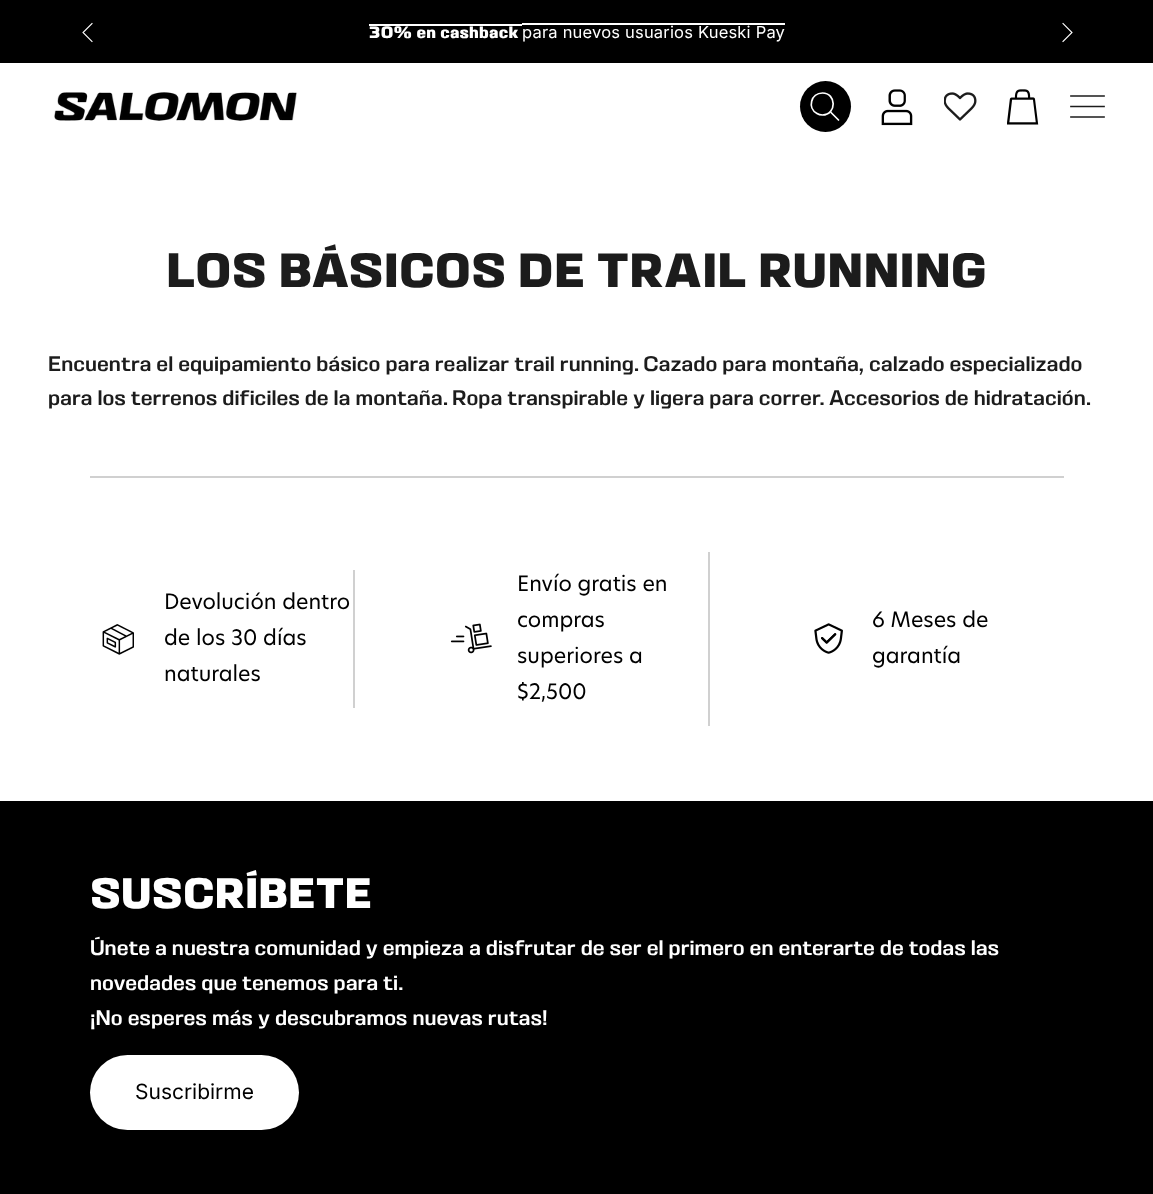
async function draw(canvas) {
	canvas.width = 1153;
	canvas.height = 1194;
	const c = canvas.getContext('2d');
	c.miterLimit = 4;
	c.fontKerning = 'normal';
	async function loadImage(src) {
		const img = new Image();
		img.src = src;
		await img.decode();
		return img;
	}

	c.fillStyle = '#fff';
	c.fillRect(0, 0, 1153, 1194);
	c.fillStyle = '#000';
	c.fillRect(0, 0, 1153, 63);
	c.beginPath();
	c.moveTo(92, 23.5);
	c.lineTo(83, 32.5);
	c.lineTo(92, 41.5);
	c.strokeStyle = '#fff';
	c.lineWidth = 1.1;
	c.lineCap = 'square';
	c.stroke();
	c.letterSpacing = '0.2px';
	c.font = 'bold 16.5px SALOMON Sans';
	c.fillStyle = '#fff';
	c.fillText('30% en cashback', 369, 38);
	c.fillRect(369, 24, 153, 2);
	c.font = '16.5px Inter';
	c.fillText('para nuevos usuarios Kueski Pay', 522, 38);
	c.fillRect(522, 23, 263, 2);
	c.beginPath();
	c.moveTo(1063, 41.5);
	c.lineTo(1072, 32.5);
	c.lineTo(1063, 23.5);
	c.stroke();
	c.drawImage(await loadImage('img1.png'), 54, 92, 243, 29);
	c.fillStyle = '#000';
	c.beginPath();
	c.arc(825.5, 106.5, 25.5, 0, 2 * Math.PI);
	c.fill();
	c.beginPath();
	c.moveTo(822.5, 93);
	c.bezierCurveTo(811, 93, 807, 108, 817, 113.5);
	c.bezierCurveTo(818.5, 114.5, 820.5, 115, 822.5, 115);
	c.bezierCurveTo(837, 114.5, 836.5, 93, 822.5, 93);
	c.closePath();
	c.lineWidth = 1.7;
	c.lineCap = 'butt';
	c.stroke();
	c.beginPath();
	c.moveTo(831, 112.5);
	c.lineTo(838.5, 120);
	c.lineCap = 'round';
	c.stroke();
	c.drawImage(await loadImage('img2.png'), 881, 89, 32, 37);
	c.drawImage(await loadImage('img3.png'), 944, 92, 33, 29);
	c.drawImage(await loadImage('img4.png'), 1007, 89, 32, 36);
	c.beginPath();
	c.moveTo(1071, 117);
	c.lineTo(1104, 117);
	c.moveTo(1071, 106.5);
	c.lineTo(1104, 106.5);
	c.moveTo(1071, 96);
	c.lineTo(1104, 96);
	c.strokeStyle = '#1c1c1c';
	c.lineCap = 'square';
	c.stroke();
	c.letterSpacing = '0.1px';
	c.font = 'bold 48px SALOMON Sans';
	c.fillStyle = '#1c1c1c';
	c.fillText('LOS BÁSICOS DE TRAIL RUNNING', 166, 287);
	c.letterSpacing = '0px';
	c.font = '21px SALOMON Sans';
	c.fillText('Encuentra el equipamiento básico para realizar trail running. Cazado para montaña, calzado especializado', 48, 371);
	c.fillText('para los terrenos dificiles de la montaña. Ropa transpirable y ligera para correr. Accesorios de hidratación.', 48, 405);
	c.fillStyle = '#d0d0d0';
	c.fillRect(90, 476, 974, 2);
	c.fillRect(353, 570, 2, 138);
	c.drawImage(await loadImage('img5.png'), 102, 624, 32, 31);
	c.font = '21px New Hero';
	c.fillStyle = '#000';
	for (const [text, x, y] of [
		['Devolución dentro', 164, 609],
		['de los 30 días', 164, 645],
		['naturales', 164, 681],
	]) {
		c.fillText(text, x, y);
	}
	c.fillStyle = '#d0d0d0';
	c.fillRect(708, 552, 2, 174);
	c.drawImage(await loadImage('img6.png'), 450, 623, 42, 31);
	c.fillStyle = '#000';
	for (const [text, x, y] of [
		['Envío gratis en', 517, 591],
		['compras', 517, 627],
		['superiores a', 517, 663],
		['$2,500', 517, 699],
	]) {
		c.fillText(text, x, y);
	}
	c.drawImage(await loadImage('img7.png'), 814, 623, 29, 31);
	c.fillText('6 Meses de', 872, 627);
	c.fillText('garantía', 872, 663);
	c.fillRect(0, 801, 1153, 393);
	c.font = 'bold 42.5px SALOMON Sans';
	c.fillStyle = '#fff';
	c.fillText('SUSCRÍBETE', 90, 908);
	c.font = '21px SALOMON Sans';
	for (const [text, x, y] of [
		['Únete a nuestra comunidad y empieza a disfrutar de ser el primero en enterarte de todas las', 90, 955],
		['novedades que tenemos para ti.', 90, 990],
		['¡No esperes más y descubramos nuevas rutas!', 90, 1025],
	]) {
		c.fillText(text, x, y);
	}
	c.beginPath();
	c.roundRect(90, 1055, 209, 75, 37.5);
	c.fill();
	c.font = '21px Inter';
	c.fillStyle = '#000';
	c.fillText('Suscribirme', 135, 1099);
}

draw(document.querySelector('canvas'));
